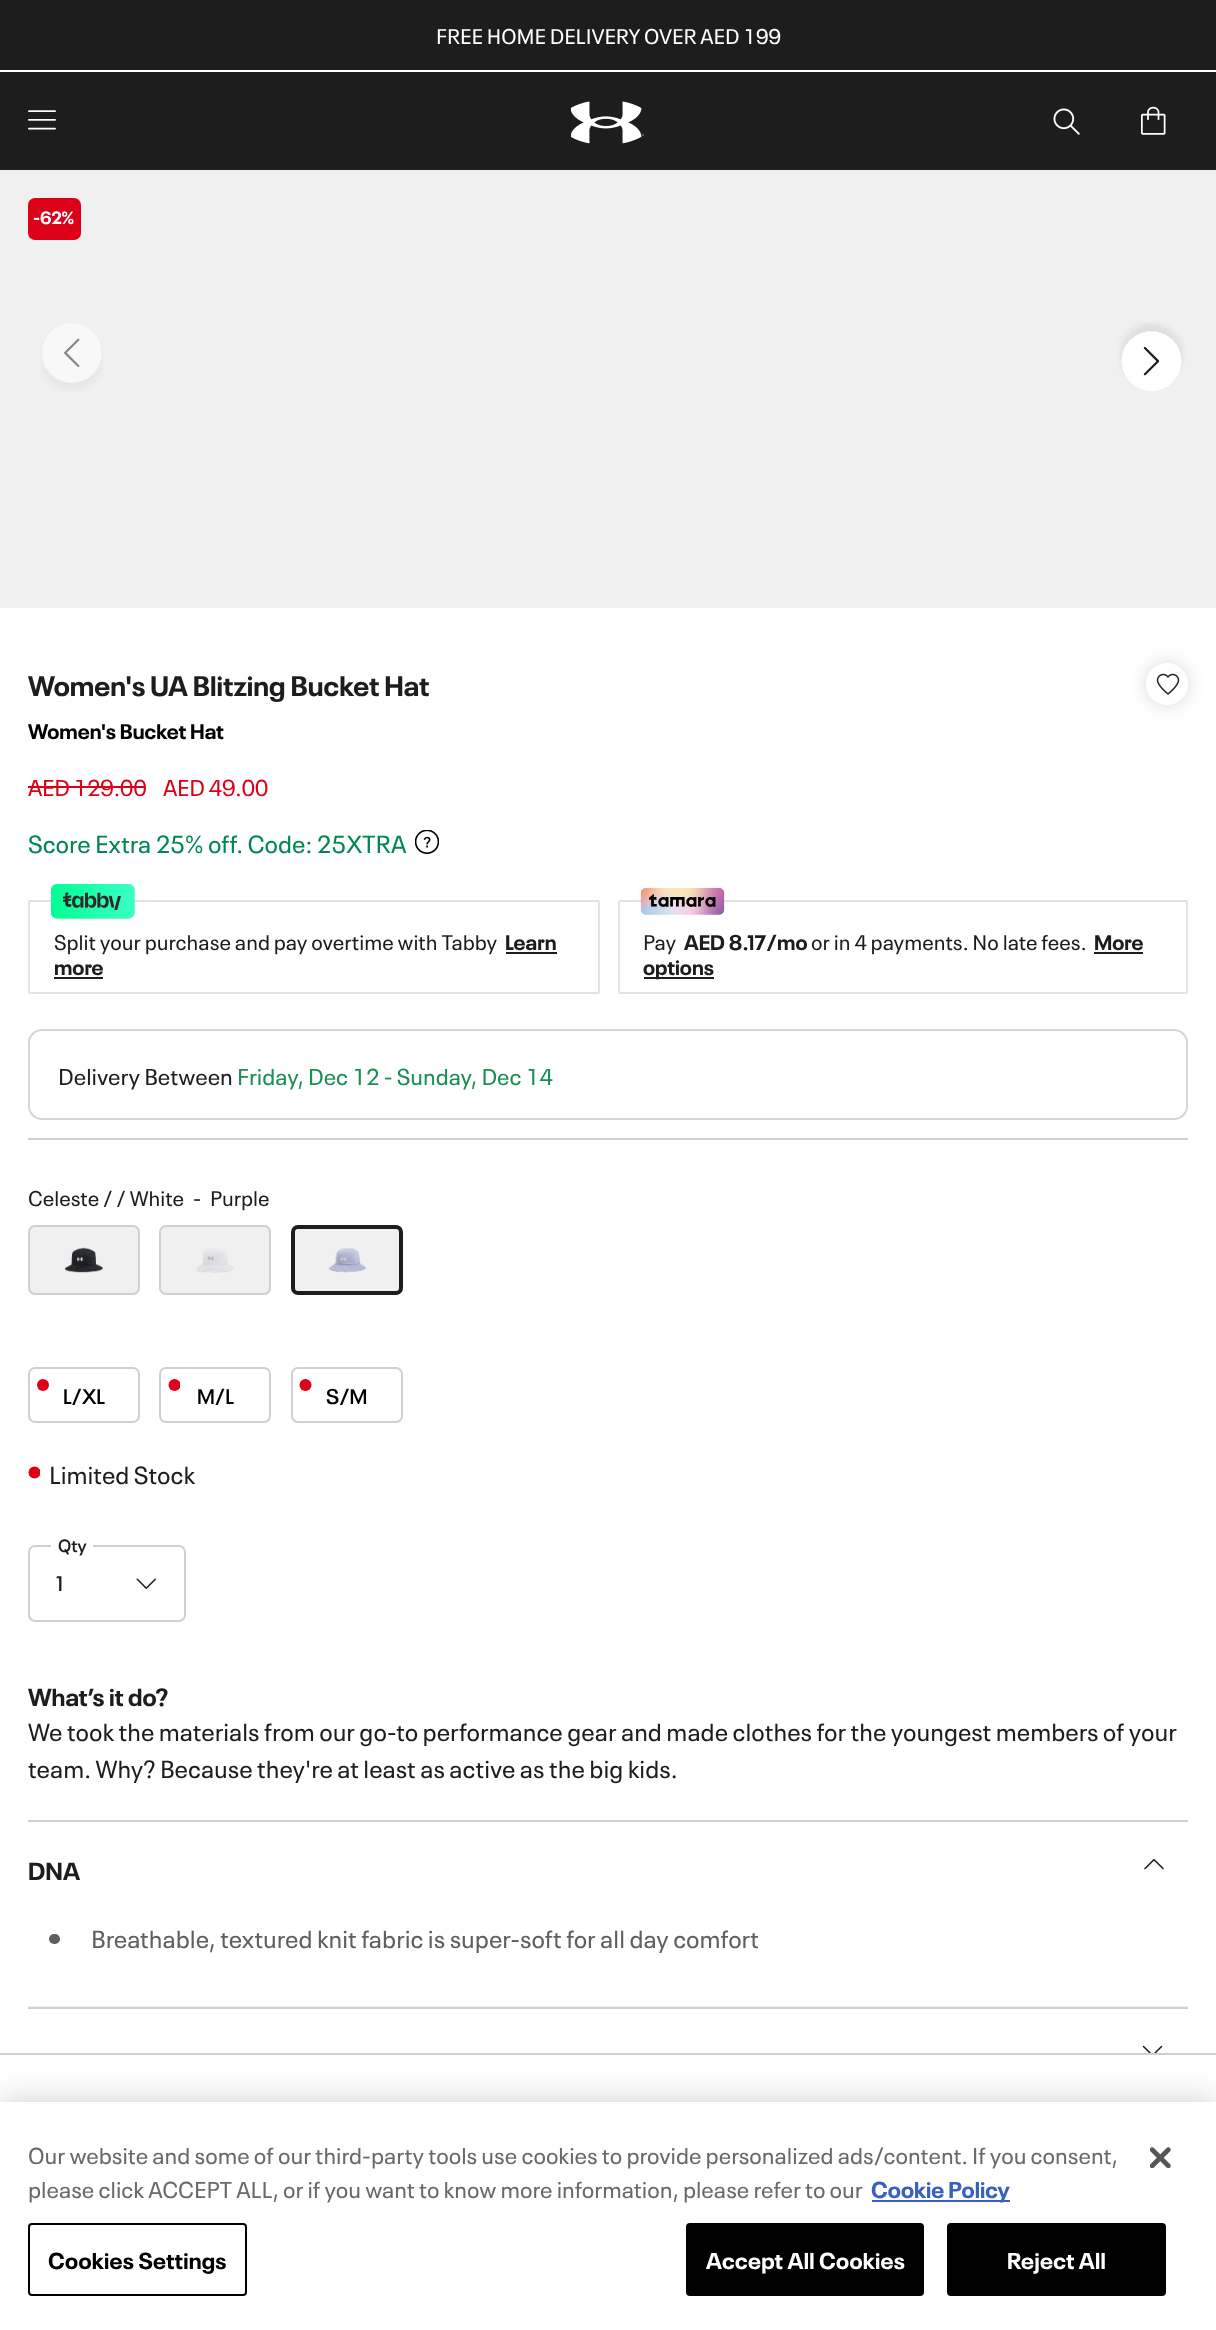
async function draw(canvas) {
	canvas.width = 1216;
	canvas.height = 2330;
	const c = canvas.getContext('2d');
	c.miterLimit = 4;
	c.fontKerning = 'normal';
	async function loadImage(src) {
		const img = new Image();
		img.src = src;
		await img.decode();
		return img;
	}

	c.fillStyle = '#fff';
	c.fillRect(0, 0, 1216, 2330);
	c.fillStyle = '#1d1d1d';
	c.fillRect(0, 0, 1216, 170);
	c.font = '21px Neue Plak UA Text';
	c.fillStyle = '#fff';
	c.fillText('FREE HOME DELIVERY OVER AED 199', 436, 44);
	c.fillRect(0, 70, 1216, 2);
	c.drawImage(await loadImage('img1.png'), 28, 110, 28, 20);
	c.drawImage(await loadImage('img2.png'), 571, 101, 73, 43);
	c.drawImage(await loadImage('img3.png'), 1053, 108, 27, 27);
	c.drawImage(await loadImage('img4.png'), 1141, 106, 25, 29);
	c.fillStyle = '#f0f0f0';
	c.fillRect(0, 170, 1216, 438);
	c.drawImage(await loadImage('img5.png'), 41, 323, 62, 68);
	c.drawImage(await loadImage('img6.png'), 1118, 322, 67, 69);
	c.fillStyle = '#dc0019';
	c.beginPath();
	c.roundRect(28, 198, 53, 42, 7);
	c.fill();
	c.font = 'bold 17.5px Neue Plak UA';
	c.fillStyle = '#fff';
	c.fillText('-62%', 33, 224);
	c.font = 'bold 28px Neue Plak UA';
	c.fillStyle = '#1d1d1d';
	c.fillText('Women\'s UA Blitzing Bucket Hat', 28, 696);
	c.save();
	c.beginPath();
	c.moveTo(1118, 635);
	c.lineTo(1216, 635);
	c.lineTo(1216, 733);
	c.lineTo(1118, 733);
	c.closePath();
	c.moveTo(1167, 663);
	c.bezierCurveTo(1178.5, 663, 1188, 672.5, 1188, 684);
	c.bezierCurveTo(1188, 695.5, 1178.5, 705, 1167, 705);
	c.bezierCurveTo(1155.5, 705, 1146, 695.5, 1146, 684);
	c.bezierCurveTo(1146, 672.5, 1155.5, 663, 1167, 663);
	c.closePath();
	c.clip('evenodd');
	c.fillStyle = '#00000026';
	c.filter = 'blur(9px)';
	c.beginPath();
	c.roundRect(1146, 663, 42, 42, 21);
	c.fill();
	c.filter = 'none';
	c.restore();
	c.drawImage(await loadImage('img7.png'), 1156, 673, 24, 22);
	c.font = 'bold 21px Neue Plak UA';
	c.fillStyle = '#000';
	c.fillText('Women\'s Bucket Hat', 28, 739);
	c.letterSpacing = '-0.25px';
	c.font = '22.75px Neue Plak UA Text';
	c.fillStyle = '#dc0019';
	c.fillText('AED 129.00', 28, 796);
	c.fillRect(28, 786, 117, 2);
	c.fillText('AED 49.00', 163, 796);
	c.letterSpacing = '0px';
	c.font = '24.5px Neue Plak UA Text';
	c.fillStyle = '#008850';
	c.fillText('Score Extra 25% off. Code: 25XTRA', 28, 853);
	c.drawImage(await loadImage('img8.png'), 415, 830, 24, 24);
	c.beginPath();
	c.roundRect(29, 901, 570, 92, 1);
	c.strokeStyle = '#e3e3e3';
	c.lineWidth = 2;
	c.stroke();
	c.drawImage(await loadImage('img9.png'), 51, 884, 84, 35);
	c.font = '21px Neue Plak UA Text';
	c.fillStyle = '#1d1d1d';
	c.fillText('Split your purchase and pay overtime with Tabby', 54, 950);
	c.font = 'bold 21px Neue Plak UA';
	c.fillText('Learn', 505, 950);
	c.fillRect(506, 952, 51, 2);
	c.fillText('more', 54, 975);
	c.fillRect(54, 977, 49, 2);
	c.beginPath();
	c.roundRect(619, 901, 568, 92, 1);
	c.stroke();
	c.drawImage(await loadImage('img10.png'), 640, 887, 85, 28);
	c.font = '21px Neue Plak UA Text';
	c.fillText('Pay', 643, 950);
	c.font = 'bold 21px Neue Plak UA';
	c.fillText('AED 8.17/mo', 684, 950);
	c.font = '21px Neue Plak UA Text';
	c.fillText('or in 4 payments. No late fees.', 811, 950);
	c.font = 'bold 21px Neue Plak UA';
	c.fillText('More', 1094, 950);
	c.fillRect(1094, 952, 49, 2);
	c.fillRect(644, 977, 70, 2);
	c.fillText('options', 643, 975);
	c.beginPath();
	c.roundRect(29, 1030, 1158, 89, 13);
	c.strokeStyle = '#d6d6d3';
	c.stroke();
	c.font = '22.75px Neue Plak UA Text';
	c.fillText('Delivery Between', 58, 1085);
	c.fillStyle = '#198f51';
	c.fillText('Friday, Dec 12 - Sunday, Dec 14', 237, 1085);
	c.fillStyle = '#d0d0d0';
	c.fillRect(28, 1138, 1160, 2);
	c.font = '21px Neue Plak UA Text';
	c.fillStyle = '#1d1d1d';
	for (const [text, x, y] of [
		['Celeste / / White', 28, 1206],
		['-', 193, 1206],
		['Purple', 210, 1206],
	]) {
		c.fillText(text, x, y);
	}
	c.fillStyle = '#f0f0f0';
	c.beginPath();
	c.roundRect(28, 1225, 112, 70, 7);
	c.fill();
	c.drawImage(await loadImage('img11.png'), 64, 1247, 39, 26);
	c.beginPath();
	c.roundRect(29, 1226, 110, 68, 6);
	c.strokeStyle = '#d0d0d0';
	c.stroke();
	c.beginPath();
	c.roundRect(159, 1225, 112, 70, 7);
	c.fill();
	c.drawImage(await loadImage('img12.png'), 196, 1248, 38, 25);
	c.beginPath();
	c.roundRect(160, 1226, 110, 68, 6);
	c.stroke();
	c.beginPath();
	c.roundRect(291, 1225, 112, 70, 7);
	c.fill();
	c.drawImage(await loadImage('img13.png'), 328, 1248, 38, 25);
	c.beginPath();
	c.roundRect(293, 1227, 108, 66, 5);
	c.strokeStyle = '#1d1d1d';
	c.lineWidth = 4;
	c.stroke();
	c.beginPath();
	c.roundRect(29, 1368, 110, 54, 6);
	c.strokeStyle = '#d0d0d0';
	c.lineWidth = 2;
	c.stroke();
	c.fillStyle = '#dc0119';
	c.beginPath();
	c.arc(43, 1385, 6, 0, 2 * Math.PI);
	c.fill();
	c.font = '600 21px Neue Plak UA';
	c.fillStyle = '#000';
	c.fillText('L/XL', 63, 1404);
	c.beginPath();
	c.roundRect(160, 1368, 110, 54, 6);
	c.stroke();
	c.save();
	c.beginPath();
	c.rect(168, 1379, 12, 12);
	c.clip();
	c.fillStyle = '#dc0119';
	c.beginPath();
	c.arc(174.5, 1385, 6, 0, 2 * Math.PI);
	c.fill();
	c.restore();
	c.fillText('M/L', 197, 1404);
	c.beginPath();
	c.roundRect(292, 1368, 110, 54, 6);
	c.stroke();
	c.fillStyle = '#dc0119';
	c.beginPath();
	c.arc(305.5, 1385, 6, 0, 2 * Math.PI);
	c.fill();
	c.fillStyle = '#000';
	c.fillText('S/M', 326, 1404);
	c.save();
	c.beginPath();
	c.rect(28, 1456, 12, 33);
	c.clip();
	c.fillStyle = '#dc0119';
	c.beginPath();
	c.arc(34.5, 1472.5, 6, 0, 2 * Math.PI);
	c.fill();
	c.restore();
	c.font = '24.5px Neue Plak UA Text';
	c.fillStyle = '#1d1d1d';
	c.fillText('Limited Stock', 49, 1484);
	c.beginPath();
	c.roundRect(29, 1546, 156, 75, 6);
	c.stroke();
	c.fillStyle = '#fff';
	c.fillRect(51, 1545, 42, 2);
	c.font = '600 17.5px Neue Plak UA';
	c.fillStyle = '#1d1d1d';
	c.fillText('Qty', 58, 1552);
	c.font = '600 21px Neue Plak UA';
	c.fillText('1', 56, 1591);
	c.drawImage(await loadImage('img14.png'), 136, 1578, 20, 11);
	c.fillStyle = '#d0d0d0';
	c.fillRect(0, 2053, 1216, 2);
	c.font = 'bold 24.5px Neue Plak UA';
	c.fillStyle = '#1d1d1d';
	c.fillText('What’s it do?', 28, 1706);
	c.font = '24.5px Neue Plak UA Text';
	c.fillText('We took the materials from our go-to performance gear and made clothes for the youngest members of your', 28, 1741);
	c.fillText('team. Why? Because they\'re at least as active as the big kids.', 28, 1778);
	c.fillStyle = '#d0d0d0';
	c.fillRect(28, 1820, 1160, 2);
	c.font = 'bold 24.5px Neue Plak UA';
	c.fillStyle = '#1d1d1d';
	c.fillText('DNA', 28, 1880);
	c.drawImage(await loadImage('img15.png'), 1144, 1858, 20, 12);
	c.fillStyle = '#f0f0f0';
	c.fillRect(28, 2006, 1160, 1);
	c.fillStyle = '#5f5f5f';
	c.beginPath();
	c.roundRect(49, 1934, 11, 10, 5);
	c.fill();
	c.font = '24.5px Neue Plak UA Text';
	c.fillText('Breathable, textured knit fabric is super-soft for all day comfort', 91, 1948);
	c.fillStyle = '#d0d0d0';
	c.fillRect(28, 2007, 1160, 2);
	c.drawImage(await loadImage('img16.png'), 1142, 2045, 21, 8);
	c.fillStyle = '#00000033';
	c.filter = 'blur(16px)';
	c.beginPath();
	c.rect(0, 2102, 1216, 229);
	c.fill();
	c.filter = 'none';
	c.fillStyle = '#fff';
	c.fillRect(0, 2102, 1216, 228);
	c.font = '22.75px Neue Plak UA Text';
	c.fillStyle = '#696969';
	c.fillText('Our website and some of our third-party tools use cookies to provide personalized ads/content. If you consent,', 28, 2164);
	c.fillText('please click ACCEPT ALL, or if you want to know more information, please refer to our', 28, 2198);
	c.fillStyle = '#3860be';
	c.fillRect(872, 2200, 138, 2);
	c.font = 'bold 22.75px Neue Plak UA';
	c.fillText('Cookie Policy', 871, 2198);
	c.beginPath();
	c.roundRect(29, 2224, 217, 71, 3);
	c.strokeStyle = '#000';
	c.stroke();
	c.letterSpacing = '0.25px';
	c.fillStyle = '#000';
	c.fillText('Cookies Settings', 48, 2269);
	c.beginPath();
	c.roundRect(687, 2224, 236, 71, 3);
	c.fill();
	c.stroke();
	c.fillStyle = '#fff';
	c.fillText('Accept All Cookies', 706, 2269);
	c.fillStyle = '#000';
	c.beginPath();
	c.roundRect(948, 2224, 217, 71, 3);
	c.fill();
	c.stroke();
	c.fillStyle = '#fff';
	c.fillText('Reject All', 1007, 2269);
	c.drawImage(await loadImage('img17.png'), 1150, 2147, 21, 21);
}

draw(document.querySelector('canvas'));
